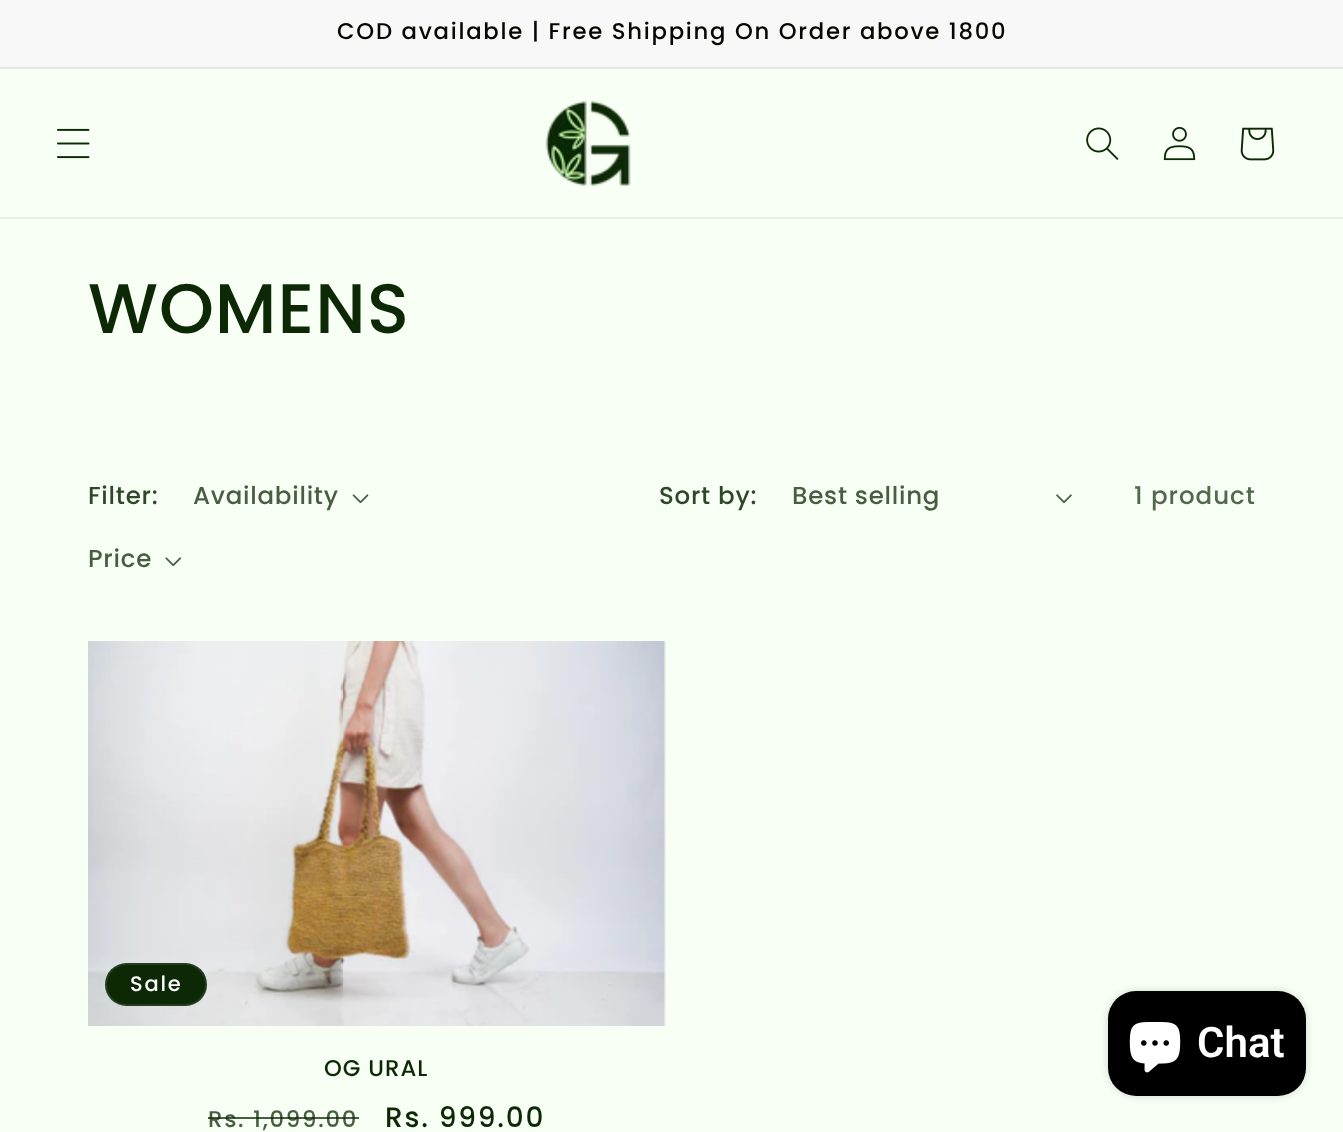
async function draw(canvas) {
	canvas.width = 1343;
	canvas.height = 1132;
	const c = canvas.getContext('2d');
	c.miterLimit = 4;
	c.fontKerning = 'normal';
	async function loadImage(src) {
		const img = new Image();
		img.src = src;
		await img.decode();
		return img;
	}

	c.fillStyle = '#f8f8f8';
	c.fillRect(0, 0, 1343, 1132);
	c.fillStyle = '#e5e5e4';
	c.fillRect(0, 67, 1343, 1);
	c.letterSpacing = '1.75px';
	c.font = '500 22.75px Poppins';
	c.fillStyle = '#070600';
	c.fillText('COD available | Free Shipping On Order above 1800', 337, 39);
	for (const [x, y, w, h, color] of [
		[0, 69, 1343, 148, '#f8fff4'],
		[0, 68, 1343, 1, '#e5ebe0'],
		[0, 217, 1343, 2, '#e5eee1'],
	]) {
		c.fillStyle = color;
		c.fillRect(x, y, w, h);
	}
	c.drawImage(await loadImage('img1.png'), 57, 128, 33, 31);
	c.drawImage(await loadImage('img2.png'), 545, 101, 86, 85);
	c.drawImage(await loadImage('img3.png'), 1086, 127, 33, 33);
	c.drawImage(await loadImage('img4.png'), 1163, 126, 33, 35);
	c.drawImage(await loadImage('img5.png'), 1240, 127, 35, 34);
	c.fillStyle = '#f8fff4';
	c.fillRect(0, 219, 1343, 913);
	c.letterSpacing = '1px';
	c.font = '500 70px Poppins';
	c.fillStyle = '#0c2805';
	c.fillText('WOMENS', 88, 333);
	c.letterSpacing = '0.75px';
	c.font = '500 24.5px Poppins';
	c.fillStyle = '#2f4829';
	c.fillText('Filter:', 88, 504);
	c.fillStyle = '#475e41';
	c.fillText('Availability', 193, 504);
	c.drawImage(await loadImage('img6.png'), 352, 494, 17, 10);
	c.fillText('Price', 88, 567);
	c.drawImage(await loadImage('img7.png'), 165, 557, 17, 10);
	c.fillStyle = '#2f4829';
	c.fillText('Sort by:', 659, 504);
	c.fillStyle = '#475e41';
	c.fillText('Best selling', 792, 504);
	c.drawImage(await loadImage('img8.png'), 1056, 494, 16, 9);
	c.letterSpacing = '1px';
	c.fillStyle = '#53694d';
	c.fillText('1 product', 1134, 504);
	c.drawImage(await loadImage('img9.png'), 88, 641, 578, 385);
	c.fillStyle = '#0c2805';
	c.beginPath();
	c.roundRect(105, 963, 102, 43, 21.5);
	c.fill();
	c.beginPath();
	c.roundRect(106, 964, 100, 41, 20.5);
	c.strokeStyle = '#ffffff1a';
	c.lineWidth = 2;
	c.stroke();
	c.letterSpacing = '1.75px';
	c.font = '500 21px Poppins';
	c.fillStyle = '#fff';
	c.fillText('Sale', 130, 991);
	c.letterSpacing = '1px';
	c.font = '500 22.75px Poppins';
	c.fillStyle = '#0c2805';
	c.fillText('OG URAL', 324, 1076);
	c.letterSpacing = '1.75px';
	c.fillStyle = '#475e41';
	c.fillText('Rs. 1,099.00', 208, 1127);
	c.fillStyle = '#0c2805bf';
	c.fillRect(208, 1117, 151, 2);
	c.font = '500 28px Poppins';
	c.fillStyle = '#0c2805';
	c.fillText('Rs. 999.00', 385, 1127);
	c.fillStyle = '#00000026';
	c.filter = 'blur(4.5px)';
	c.beginPath();
	c.roundRect(1108, 991, 198, 105, 28);
	c.fill();
	c.filter = 'none';
	c.fillStyle = '#000';
	c.beginPath();
	c.roundRect(1108, 991, 198, 105, 28);
	c.fill();
	c.drawImage(await loadImage('img10.png'), 1129, 1022, 52, 51);
	c.letterSpacing = '0px';
	c.font = '600 42px Roboto';
	c.fillStyle = '#fff';
	c.fillText('Chat', 1197, 1057);
}

draw(document.querySelector('canvas'));
